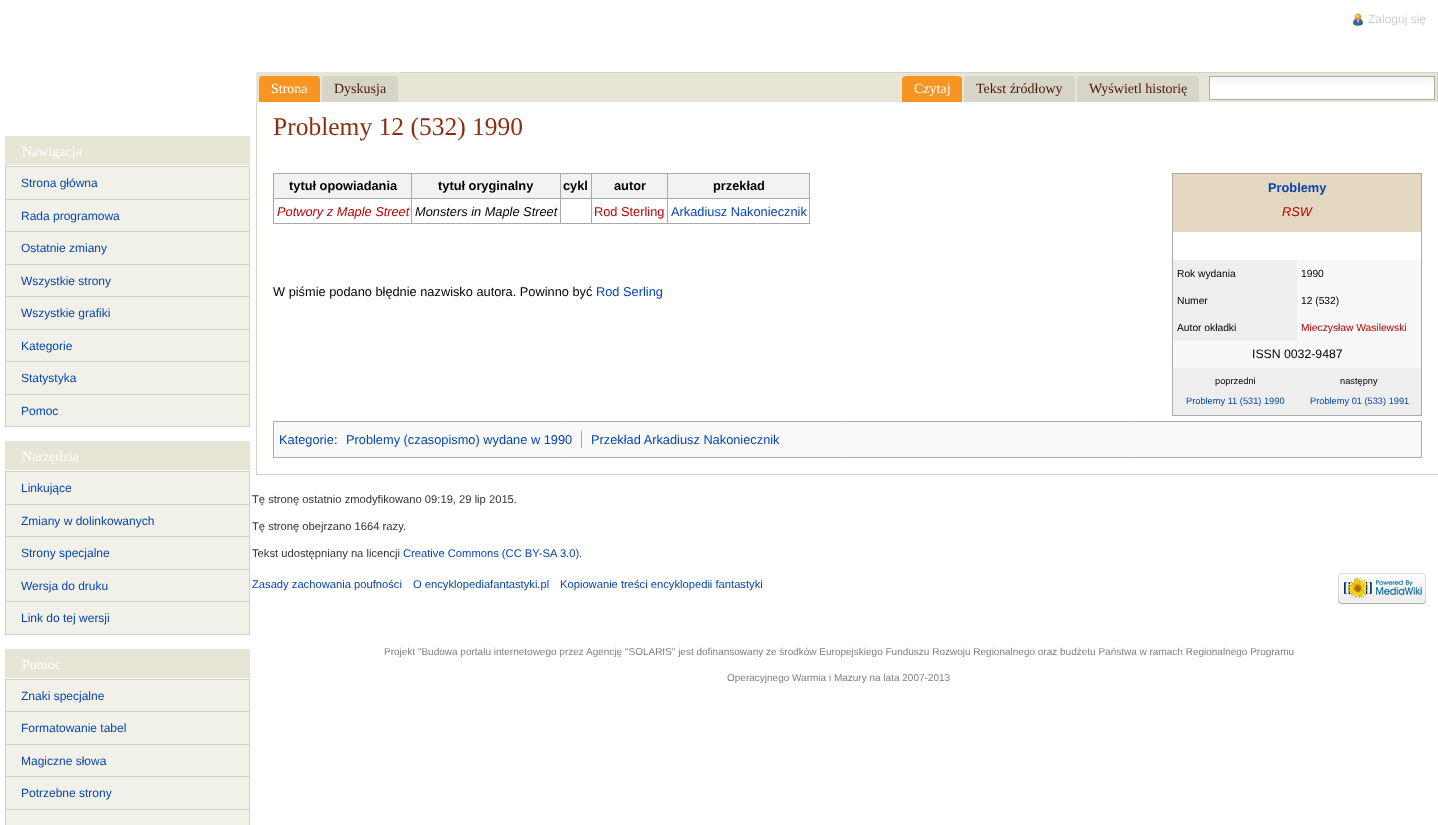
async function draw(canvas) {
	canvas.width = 1438;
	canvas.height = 825;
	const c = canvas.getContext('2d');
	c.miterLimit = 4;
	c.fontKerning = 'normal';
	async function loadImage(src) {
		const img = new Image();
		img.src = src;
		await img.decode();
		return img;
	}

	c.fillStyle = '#fff';
	c.fillRect(0, 0, 1438, 825);
	for (const [x, y, w, h, color] of [
		[400, 73, 1037, 29, '#e7e5d6'],
		[400, 72, 1038, 1, '#d4d2c7'],
		[1437, 72, 1, 30, '#d4d2c7'],
	]) {
		c.fillStyle = color;
		c.fillRect(x, y, w, h);
	}
	c.drawImage(await loadImage('img1.png'), 1353, 13, 10, 13);
	c.font = '12px Liberation Sans';
	c.fillStyle = '#cfcfcf';
	c.fillText('Zaloguj się', 1368, 23);
	for (const [x, y, w, h, color] of [
		[256, 474, 1182, 1, '#d4d2c7'],
		[256, 96, 1, 379, '#d4d2c7'],
		[256, 72, 144, 30, '#e7e5d6'],
	]) {
		c.fillStyle = color;
		c.fillRect(x, y, w, h);
	}
	c.fillStyle = '#f69522';
	c.beginPath();
	c.roundRect(259, 76, 61, 26, [4, 4, 0, 0]);
	c.fill();
	c.font = '14px Liberation Serif';
	c.fillStyle = '#fff';
	c.fillText('Strona', 271, 93);
	c.fillStyle = '#d7d5c8';
	c.beginPath();
	c.roundRect(322, 76, 76, 26, [4, 4, 0, 0]);
	c.fill();
	c.fillStyle = '#491706';
	c.fillText('Dyskusja', 334, 93);
	c.fillStyle = '#f69522';
	c.beginPath();
	c.roundRect(902, 76, 60, 26, [4, 4, 0, 0]);
	c.fill();
	c.fillStyle = '#fff';
	c.fillText('Czytaj', 914, 93);
	c.fillStyle = '#d7d5c8';
	c.beginPath();
	c.roundRect(964, 76, 111, 26, [4, 4, 0, 0]);
	c.fill();
	c.fillStyle = '#491706';
	c.fillText('Tekst źródłowy', 976, 93);
	c.fillStyle = '#d7d5c8';
	c.beginPath();
	c.roundRect(1077, 76, 122, 26, [4, 4, 0, 0]);
	c.fill();
	c.fillStyle = '#491706';
	c.fillText('Wyświetl historię', 1089, 93);
	c.fillStyle = '#fff';
	c.fillRect(1210, 85, 224, 14);
	c.drawImage(await loadImage('img2.png'), 1210, 77, 224, 8);
	c.strokeStyle = '#aaa';
	c.strokeRect(1209.5, 76.5, 225, 23);
	c.fillStyle = '#e7e5d6';
	c.fillRect(5, 136, 245, 29);
	c.fillStyle = '#fff';
	c.fillText('Nawigacja', 22, 156);
	c.strokeStyle = '#d4d2c7';
	c.strokeRect(5.5, 166.5, 244, 33);
	c.fillStyle = '#f2f1e9';
	c.fillRect(6, 167, 243, 32);
	c.font = '12px Liberation Sans';
	c.fillStyle = '#0645ad';
	c.fillText('Strona główna', 21, 187);
	for (const [x, y, w, h, color] of [
		[249, 200, 1, 227, '#d4d2c7'],
		[5, 231, 245, 1, '#d4d2c7'],
		[5, 200, 1, 32, '#d4d2c7'],
		[6, 200, 243, 31, '#f2f1e9'],
	]) {
		c.fillStyle = color;
		c.fillRect(x, y, w, h);
	}
	c.fillStyle = '#0645ad';
	c.fillText('Rada programowa', 21, 220);
	for (const [x, y, w, h, color] of [
		[5, 264, 245, 1, '#d4d2c7'],
		[5, 232, 1, 33, '#d4d2c7'],
		[6, 232, 243, 32, '#f2f1e9'],
	]) {
		c.fillStyle = color;
		c.fillRect(x, y, w, h);
	}
	c.fillStyle = '#0645ad';
	c.fillText('Ostatnie zmiany', 21, 252);
	for (const [x, y, w, h, color] of [
		[5, 296, 245, 1, '#d4d2c7'],
		[5, 265, 1, 32, '#d4d2c7'],
		[6, 265, 243, 31, '#f2f1e9'],
	]) {
		c.fillStyle = color;
		c.fillRect(x, y, w, h);
	}
	c.fillStyle = '#0645ad';
	c.fillText('Wszystkie strony', 21, 285);
	for (const [x, y, w, h, color] of [
		[5, 329, 245, 1, '#d4d2c7'],
		[5, 297, 1, 33, '#d4d2c7'],
		[6, 297, 243, 32, '#f2f1e9'],
	]) {
		c.fillStyle = color;
		c.fillRect(x, y, w, h);
	}
	c.fillStyle = '#0645ad';
	c.fillText('Wszystkie grafiki', 21, 317);
	for (const [x, y, w, h, color] of [
		[5, 361, 245, 1, '#d4d2c7'],
		[5, 330, 1, 32, '#d4d2c7'],
		[6, 330, 243, 31, '#f2f1e9'],
	]) {
		c.fillStyle = color;
		c.fillRect(x, y, w, h);
	}
	c.fillStyle = '#0645ad';
	c.fillText('Kategorie', 21, 350);
	for (const [x, y, w, h, color] of [
		[5, 394, 245, 1, '#d4d2c7'],
		[5, 362, 1, 33, '#d4d2c7'],
		[6, 362, 243, 32, '#f2f1e9'],
	]) {
		c.fillStyle = color;
		c.fillRect(x, y, w, h);
	}
	c.fillStyle = '#0645ad';
	c.fillText('Statystyka', 21, 382);
	for (const [x, y, w, h, color] of [
		[5, 426, 245, 1, '#d4d2c7'],
		[5, 395, 1, 32, '#d4d2c7'],
		[6, 395, 243, 31, '#f2f1e9'],
	]) {
		c.fillStyle = color;
		c.fillRect(x, y, w, h);
	}
	c.fillStyle = '#0645ad';
	c.fillText('Pomoc', 21, 415);
	c.fillStyle = '#e7e5d6';
	c.fillRect(5, 441, 245, 29);
	c.font = '14px Liberation Serif';
	c.fillStyle = '#fff';
	c.fillText('Narzędzia', 22, 461);
	c.strokeRect(5.5, 471.5, 244, 33);
	c.fillStyle = '#f2f1e9';
	c.fillRect(6, 472, 243, 32);
	c.font = '12px Liberation Sans';
	c.fillStyle = '#0645ad';
	c.fillText('Linkujące', 21, 492);
	for (const [x, y, w, h, color] of [
		[249, 505, 1, 130, '#d4d2c7'],
		[5, 536, 245, 1, '#d4d2c7'],
		[5, 505, 1, 32, '#d4d2c7'],
		[6, 505, 243, 31, '#f2f1e9'],
	]) {
		c.fillStyle = color;
		c.fillRect(x, y, w, h);
	}
	c.fillStyle = '#0645ad';
	c.fillText('Zmiany w dolinkowanych', 21, 525);
	for (const [x, y, w, h, color] of [
		[5, 569, 245, 1, '#d4d2c7'],
		[5, 537, 1, 33, '#d4d2c7'],
		[6, 537, 243, 32, '#f2f1e9'],
	]) {
		c.fillStyle = color;
		c.fillRect(x, y, w, h);
	}
	c.fillStyle = '#0645ad';
	c.fillText('Strony specjalne', 21, 557);
	for (const [x, y, w, h, color] of [
		[5, 601, 245, 1, '#d4d2c7'],
		[5, 570, 1, 32, '#d4d2c7'],
		[6, 570, 243, 31, '#f2f1e9'],
	]) {
		c.fillStyle = color;
		c.fillRect(x, y, w, h);
	}
	c.fillStyle = '#0645ad';
	c.fillText('Wersja do druku', 21, 590);
	for (const [x, y, w, h, color] of [
		[5, 634, 245, 1, '#d4d2c7'],
		[5, 602, 1, 33, '#d4d2c7'],
		[6, 602, 243, 32, '#f2f1e9'],
	]) {
		c.fillStyle = color;
		c.fillRect(x, y, w, h);
	}
	c.fillStyle = '#0645ad';
	c.fillText('Link do tej wersji', 21, 622);
	c.fillStyle = '#e7e5d6';
	c.fillRect(5, 649, 245, 29);
	c.font = '14px Liberation Serif';
	c.fillStyle = '#fff';
	c.fillText('Pomoc', 22, 669);
	c.strokeRect(5.5, 679.5, 244, 32);
	c.fillStyle = '#f2f1e9';
	c.fillRect(6, 680, 243, 31);
	c.font = '12px Liberation Sans';
	c.fillStyle = '#0645ad';
	c.fillText('Znaki specjalne', 21, 700);
	for (const [x, y, w, h, color] of [
		[249, 712, 1, 113, '#d4d2c7'],
		[5, 744, 245, 1, '#d4d2c7'],
		[5, 712, 1, 33, '#d4d2c7'],
		[6, 712, 243, 32, '#f2f1e9'],
	]) {
		c.fillStyle = color;
		c.fillRect(x, y, w, h);
	}
	c.fillStyle = '#0645ad';
	c.fillText('Formatowanie tabel', 21, 732);
	for (const [x, y, w, h, color] of [
		[5, 776, 245, 1, '#d4d2c7'],
		[5, 745, 1, 32, '#d4d2c7'],
		[6, 745, 243, 31, '#f2f1e9'],
	]) {
		c.fillStyle = color;
		c.fillRect(x, y, w, h);
	}
	c.fillStyle = '#0645ad';
	c.fillText('Magiczne słowa', 21, 765);
	for (const [x, y, w, h, color] of [
		[5, 809, 245, 1, '#d4d2c7'],
		[5, 777, 1, 48, '#d4d2c7'],
		[6, 777, 243, 32, '#f2f1e9'],
	]) {
		c.fillStyle = color;
		c.fillRect(x, y, w, h);
	}
	c.fillStyle = '#0645ad';
	c.fillText('Potrzebne strony', 21, 797);
	c.fillStyle = '#f2f1e9';
	c.fillRect(6, 810, 243, 15);
	c.font = '25.5px Liberation Serif';
	c.fillStyle = '#8b2f10';
	c.fillText('Problemy 12 (532) 1990', 273, 135);
	for (const [x, y, w, h, color] of [
		[273, 173, 537, 1, '#aaa'],
		[809, 173, 1, 51, '#aaa'],
		[273, 223, 537, 1, '#aaa'],
		[273, 173, 1, 51, '#aaa'],
		[274, 174, 137, 24, '#f2f2f2'],
	]) {
		c.fillStyle = color;
		c.fillRect(x, y, w, h);
	}
	c.font = 'bold 12.8px Liberation Sans';
	c.fillStyle = '#000';
	c.fillText('tytuł opowiadania', 289, 190);
	for (const [x, y, w, h, color] of [
		[412, 174, 148, 24, '#f2f2f2'],
		[667, 198, 143, 1, '#aaa'],
		[667, 198, 1, 26, '#aaa'],
		[591, 198, 77, 1, '#aaa'],
		[591, 198, 1, 26, '#aaa'],
		[560, 198, 32, 1, '#aaa'],
		[560, 198, 1, 26, '#aaa'],
		[411, 198, 150, 1, '#aaa'],
		[411, 198, 1, 26, '#aaa'],
		[273, 198, 139, 1, '#aaa'],
		[411, 173, 1, 26, '#aaa'],
	]) {
		c.fillStyle = color;
		c.fillRect(x, y, w, h);
	}
	c.fillStyle = '#000';
	c.fillText('tytuł oryginalny', 438, 190);
	c.fillStyle = '#f2f2f2';
	c.fillRect(561, 174, 30, 24);
	c.fillStyle = '#aaa';
	c.fillRect(560, 173, 1, 26);
	c.fillStyle = '#000';
	c.fillText('cykl', 563, 190);
	c.fillStyle = '#f2f2f2';
	c.fillRect(592, 174, 75, 24);
	c.fillStyle = '#aaa';
	c.fillRect(591, 173, 1, 26);
	c.fillStyle = '#000';
	c.fillText('autor', 614, 190);
	c.fillStyle = '#f2f2f2';
	c.fillRect(668, 174, 141, 24);
	c.fillStyle = '#aaa';
	c.fillRect(667, 173, 1, 26);
	c.fillStyle = '#000';
	c.fillText('przekład', 713, 190);
	c.font = 'italic 12.8px Liberation Sans';
	c.fillStyle = '#ba0000';
	c.fillText('Potwory z Maple Street', 277, 216);
	c.fillStyle = '#000';
	c.fillText('Monsters in Maple Street', 415, 216);
	c.font = '12.8px Liberation Sans';
	c.fillStyle = '#ba0000';
	c.fillText('Rod Sterling', 594, 216);
	c.fillStyle = '#0645ad';
	c.fillText('Arkadiusz Nakoniecznik', 671, 216);
	for (const [x, y, w, h, color] of [
		[1173, 260, 248, 108, '#f8f8f8'],
		[1172, 173, 250, 1, '#aaa'],
		[1421, 173, 1, 243, '#aaa'],
		[1172, 415, 250, 1, '#aaa'],
		[1172, 173, 1, 243, '#aaa'],
		[1173, 174, 248, 58, '#e5d8c0'],
	]) {
		c.fillStyle = color;
		c.fillRect(x, y, w, h);
	}
	c.font = 'bold 12.8px Liberation Sans';
	c.fillStyle = '#0645ad';
	c.fillText('Problemy', 1268, 192);
	c.font = 'italic 12.8px Liberation Sans';
	c.fillStyle = '#ba0000';
	c.fillText('RSW', 1282, 216);
	c.fillStyle = '#eee';
	c.fillRect(1173, 260, 124, 81);
	c.font = '10.25px Liberation Sans';
	c.fillStyle = '#000';
	for (const [text, x, y] of [
		['Rok wydania', 1177, 277],
		['1990', 1301, 277],
		['Numer', 1177, 304],
		['12 (532)', 1301, 304],
		['Autor okładki', 1177, 331],
	]) {
		c.fillText(text, x, y);
	}
	c.fillStyle = '#ba0000';
	c.fillText('Mieczysław Wasilewski', 1301, 331);
	c.font = '12.25px Liberation Sans';
	c.fillStyle = '#000';
	c.fillText('ISSN 0032-9487', 1252, 358);
	c.fillStyle = '#eee';
	c.fillRect(1173, 368, 248, 47);
	c.font = '9.25px Liberation Sans';
	c.fillStyle = '#000';
	c.fillText('poprzedni', 1215, 384);
	c.fillStyle = '#0645ad';
	c.fillText('Problemy 11 (531) 1990', 1186, 404);
	c.fillStyle = '#000';
	c.fillText('następny', 1340, 384);
	c.fillStyle = '#0645ad';
	c.fillText('Problemy 01 (533) 1991', 1310, 404);
	c.font = '12.8px Liberation Sans';
	c.fillStyle = '#000';
	c.fillText('W piśmie podano błędnie nazwisko autora. Powinno być', 273, 296);
	c.fillStyle = '#0645ad';
	c.fillText('Rod Serling', 596, 296);
	c.fillStyle = '#f9f9f9';
	c.beginPath();
	c.rect(273.5, 421.5, 1148, 36);
	c.fill();
	c.strokeStyle = '#aaa';
	c.stroke();
	c.fillStyle = '#0645ad';
	c.fillText('Kategorie', 279, 444);
	c.fillStyle = '#000';
	c.fillText(':', 334, 444);
	c.fillStyle = '#0645ad';
	c.fillText('Problemy (czasopismo) wydane w 1990', 346, 444);
	c.fillStyle = '#aaa';
	c.fillRect(581, 431, 1, 17);
	c.fillStyle = '#0645ad';
	c.fillText('Przekład Arkadiusz Nakoniecznik', 591, 444);
	c.font = '11.2px Liberation Sans';
	c.fillStyle = '#333';
	for (const [text, x, y] of [
		['Tę stronę ostatnio zmodyfikowano 09:19, 29 lip 2015.', 252, 503],
		['Tę stronę obejrzano 1664 razy.', 252, 530],
		['Tekst udostępniany na licencji', 252, 557],
	]) {
		c.fillText(text, x, y);
	}
	c.fillStyle = '#0645ad';
	c.fillText('Creative Commons (CC BY-SA 3.0)', 403, 557);
	c.fillStyle = '#333';
	c.fillText('.', 579, 557);
	c.fillStyle = '#0645ad';
	for (const [text, x, y] of [
		['Zasady zachowania poufności', 252, 588],
		['O encyklopediafantastyki.pl', 413, 588],
		['Kopiowanie treści encyklopedii fantastyki', 560, 588],
	]) {
		c.fillText(text, x, y);
	}
	c.drawImage(await loadImage('img3.png'), 1338, 573, 88, 31);
	c.font = '10px Liberation Sans';
	c.fillStyle = '#808080';
	c.fillText('Projekt "Budowa portalu internetowego przez Agencję "SOLARIS" jest dofinansowany ze środków Europejskiego Funduszu Rozwoju Regionalnego oraz budżetu Państwa w ramach Regionalnego Programu', 384, 655);
	c.fillText('Operacyjnego Warmia i Mazury na lata 2007-2013', 727, 681);
}

draw(document.querySelector('canvas'));
